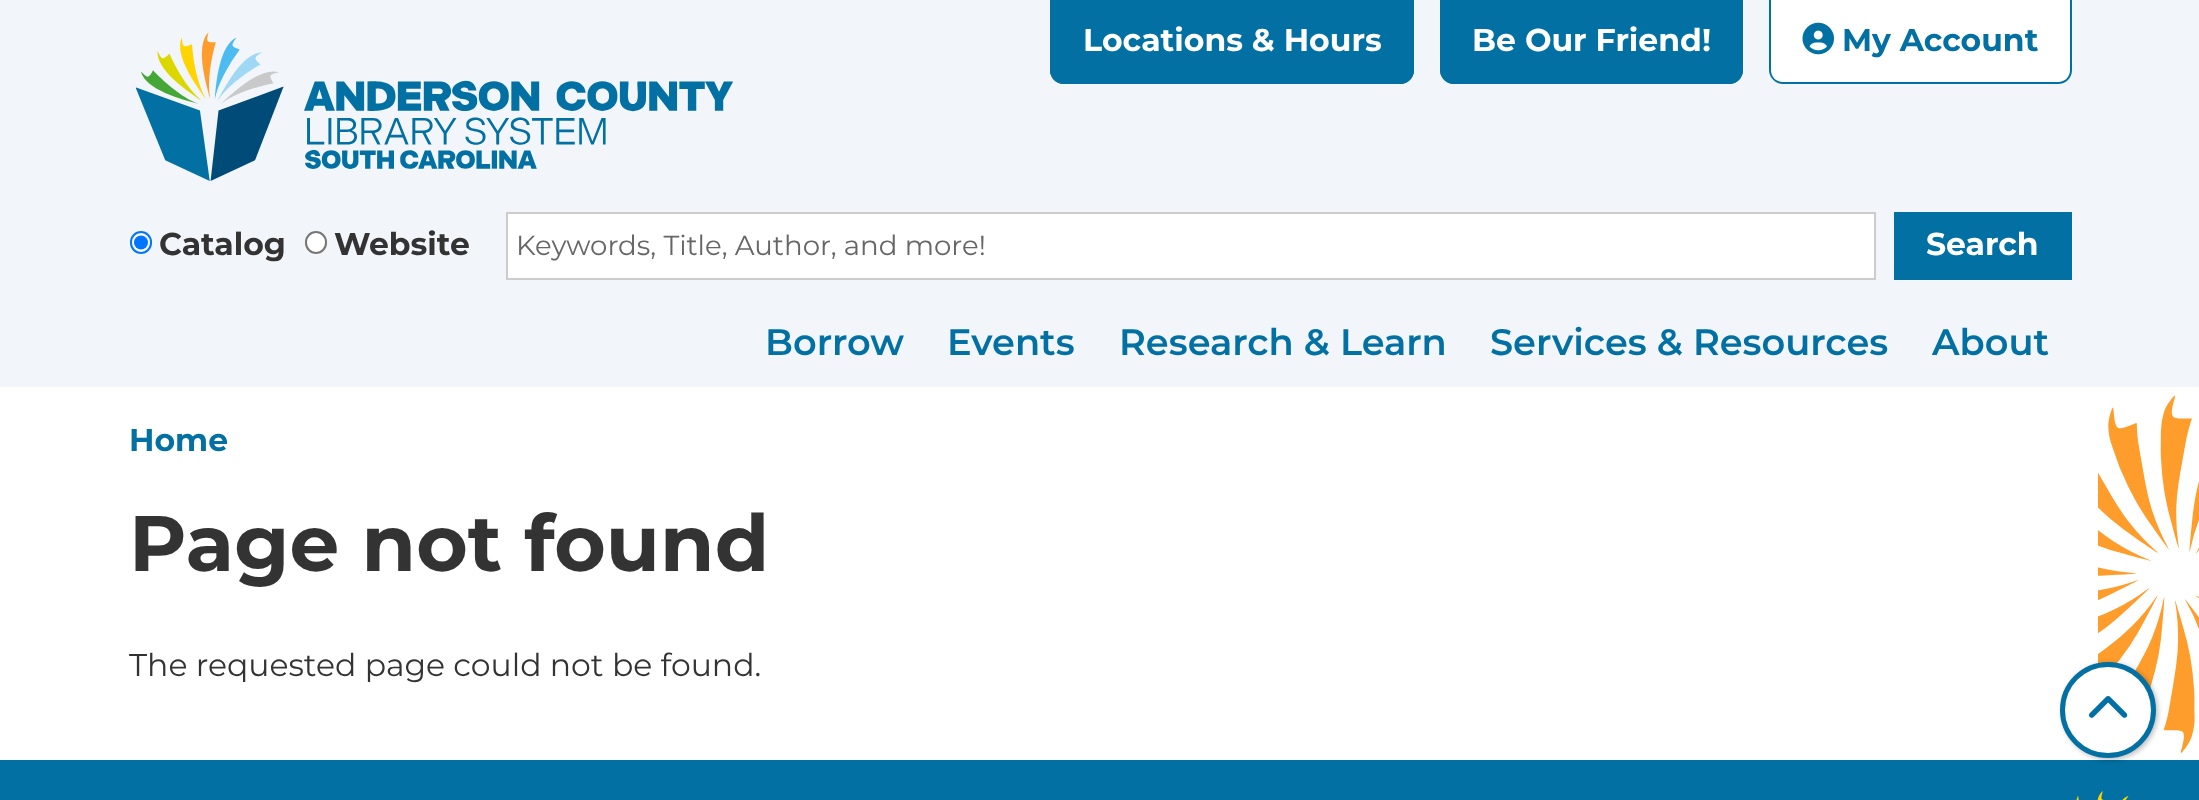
async function draw(canvas) {
	canvas.width = 2199;
	canvas.height = 800;
	const c = canvas.getContext('2d');
	c.miterLimit = 4;
	c.fontKerning = 'normal';
	async function loadImage(src) {
		const img = new Image();
		img.src = src;
		await img.decode();
		return img;
	}

	c.fillStyle = '#fff';
	c.fillRect(0, 0, 2199, 800);
	c.fillStyle = '#f2f5f9';
	c.fillRect(0, 0, 2199, 387);
	c.drawImage(await loadImage('img1.png'), 135, 32, 598, 149);
	c.fillStyle = '#0270a3';
	c.beginPath();
	c.roundRect(1050, 0, 364, 84, [0, 0, 14, 14]);
	c.fill();
	c.beginPath();
	c.moveTo(1050, 0);
	c.lineTo(1414, 0);
	c.lineTo(1414, 70);
	c.bezierCurveTo(1414, 78, 1408, 84, 1400, 84);
	c.lineTo(1064, 84);
	c.bezierCurveTo(1056, 84, 1050, 78, 1050, 70);
	c.closePath();
	c.moveTo(1052, 0);
	c.lineTo(1412, 0);
	c.lineTo(1412, 70);
	c.bezierCurveTo(1412, 77, 1407, 82, 1400, 82);
	c.lineTo(1064, 82);
	c.bezierCurveTo(1057, 82, 1052, 77, 1052, 70);
	c.closePath();
	c.fill('evenodd');
	c.font = 'bold 31.5px Montserrat';
	c.fillStyle = '#fff';
	c.fillText('Locations & Hours', 1083, 51);
	c.fillStyle = '#0270a3';
	c.beginPath();
	c.roundRect(1440, 0, 303, 84, [0, 0, 14, 14]);
	c.fill();
	c.beginPath();
	c.moveTo(1440, 0);
	c.lineTo(1743, 0);
	c.lineTo(1743, 70);
	c.bezierCurveTo(1743, 78, 1737, 84, 1729, 84);
	c.lineTo(1454, 84);
	c.bezierCurveTo(1447, 84, 1440, 78, 1440, 70);
	c.closePath();
	c.moveTo(1442, 0);
	c.lineTo(1741, 0);
	c.lineTo(1741, 70);
	c.bezierCurveTo(1741, 77, 1736, 82, 1729, 82);
	c.lineTo(1454, 82);
	c.bezierCurveTo(1447, 82, 1442, 77, 1442, 70);
	c.closePath();
	c.fill('evenodd');
	c.fillStyle = '#fff';
	c.fillText('Be Our Friend!', 1472, 51);
	c.beginPath();
	c.roundRect(1769, 0, 303, 84, [0, 0, 14, 14]);
	c.fill();
	c.fillStyle = '#0270a3';
	c.beginPath();
	c.moveTo(1769, 0);
	c.lineTo(2072, 0);
	c.lineTo(2072, 70);
	c.bezierCurveTo(2072, 78, 2066, 84, 2058, 84);
	c.lineTo(1783, 84);
	c.bezierCurveTo(1776, 84, 1769, 78, 1769, 70);
	c.closePath();
	c.moveTo(1771, 0);
	c.lineTo(2070, 0);
	c.lineTo(2070, 70);
	c.bezierCurveTo(2070, 77, 2065, 82, 2058, 82);
	c.lineTo(1783, 82);
	c.bezierCurveTo(1776, 82, 1771, 77, 1771, 70);
	c.closePath();
	c.fill('evenodd');
	c.drawImage(await loadImage('img2.png'), 1802, 22, 32, 33);
	c.fillText('My Account', 1842, 51);
	c.fillStyle = '#fff';
	c.beginPath();
	c.roundRect(131, 232, 20, 21, 10);
	c.fill();
	c.strokeStyle = '#0075ff';
	c.lineWidth = 2;
	c.stroke();
	c.fillStyle = '#0075ff';
	c.beginPath();
	c.arc(141, 242.5, 7, 0, 2 * Math.PI);
	c.fill();
	c.fillStyle = '#333';
	c.fillText('Catalog', 159, 255);
	c.fillStyle = '#fff';
	c.beginPath();
	c.roundRect(306, 232, 20, 21, 10);
	c.fill();
	c.strokeStyle = '#767676';
	c.stroke();
	c.fillStyle = '#333';
	c.fillText('Website', 334, 255);
	c.fillStyle = '#fff';
	c.beginPath();
	c.rect(507, 213, 1368, 66);
	c.fill();
	c.strokeStyle = '#ccc';
	c.stroke();
	c.font = '27.6px Montserrat';
	c.fillStyle = '#666';
	c.fillText('Keywords, Title, Author, and more!', 516, 255);
	c.fillStyle = '#0270a3';
	c.fillRect(1894, 212, 178, 68);
	c.font = 'bold 31.5px Montserrat';
	c.fillStyle = '#fff';
	c.fillText('Search', 1926, 255);
	c.font = '600 36.75px Montserrat';
	c.fillStyle = '#0270a3';
	for (const [text, x, y] of [
		['Borrow', 765, 355],
		['Events', 947, 355],
		['Research & Learn', 1119, 355],
		['Services & Resources', 1490, 355],
		['About', 1932, 355],
	]) {
		c.fillText(text, x, y);
	}
	c.drawImage(await loadImage('img3.png'), 2098, 395, 101, 358);
	c.font = 'bold 31.5px Montserrat';
	c.fillText('Home', 129, 451);
	c.font = 'bold 78.75px Montserrat';
	c.fillStyle = '#333';
	c.fillText('Page not found', 129, 571);
	c.font = '31.5px Montserrat';
	c.fillText('The requested page could not be found.', 129, 676);
	c.fillStyle = '#0270a3';
	c.fillRect(0, 760, 2199, 40);
	c.fillStyle = '#00000040';
	c.filter = 'blur(2.5px)';
	c.beginPath();
	c.roundRect(2062, 663, 96, 97, 48);
	c.fill();
	c.filter = 'none';
	c.fillStyle = '#fff';
	c.beginPath();
	c.arc(2108, 710, 45.5, 0, 2 * Math.PI);
	c.fill();
	c.strokeStyle = '#0270a3';
	c.lineWidth = 5;
	c.stroke();
	c.drawImage(await loadImage('img4.png'), 2089, 696, 39, 22);
	c.drawImage(await loadImage('img5.png'), 2076, 791, 53, 9);
}

draw(document.querySelector('canvas'));
